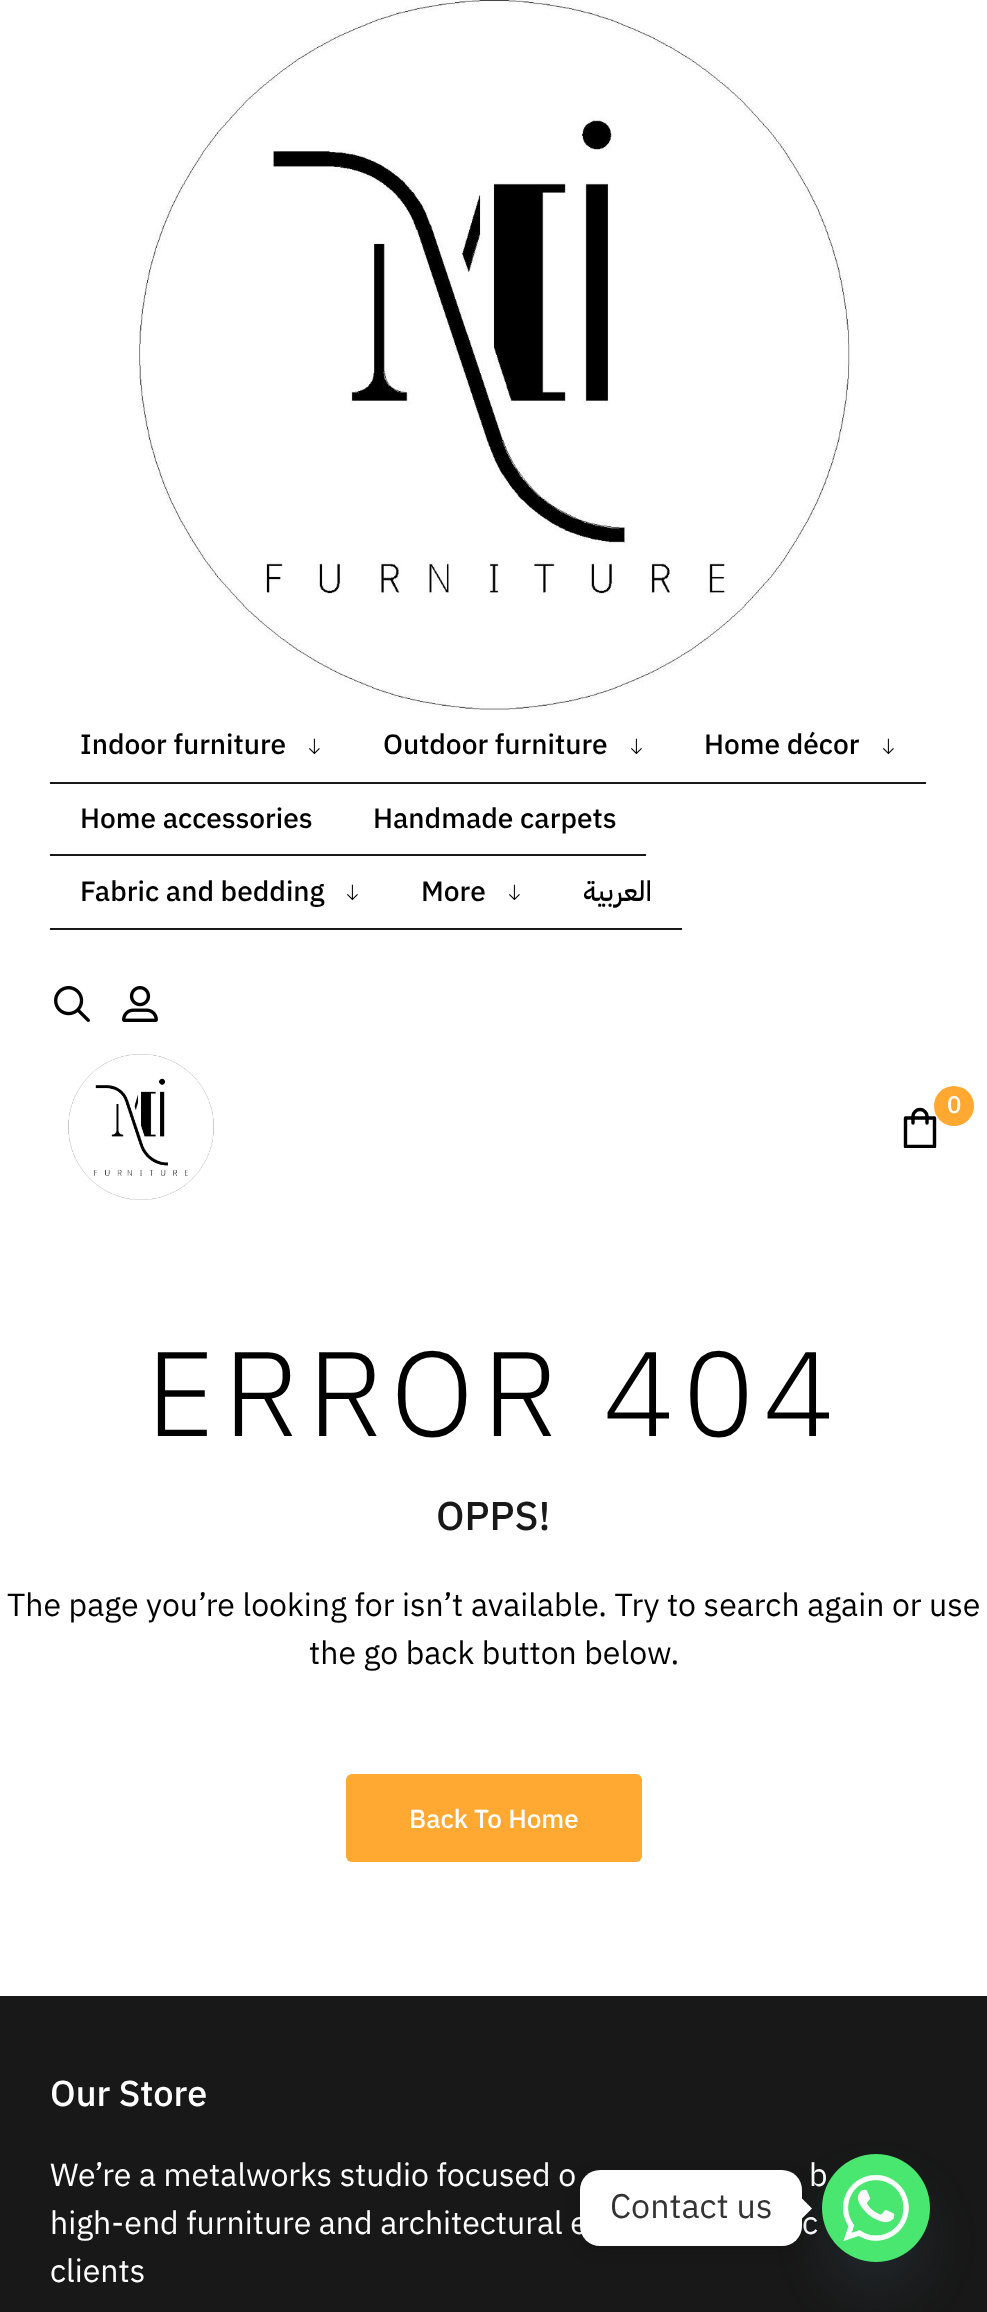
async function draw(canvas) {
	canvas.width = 987;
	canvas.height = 2312;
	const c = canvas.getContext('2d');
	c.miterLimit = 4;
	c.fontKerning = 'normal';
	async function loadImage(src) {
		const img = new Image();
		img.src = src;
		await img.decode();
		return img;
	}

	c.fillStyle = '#fff';
	c.fillRect(0, 0, 987, 2312);
	c.drawImage(await loadImage('img1.png'), 139, 0, 711, 710);
	c.fillStyle = '#181818';
	c.fillRect(50, 782, 876, 2);
	c.font = '500 28px IBM Plex Sans Arabic';
	c.fillStyle = '#000';
	c.fillText('Indoor furniture', 80, 754);
	c.drawImage(await loadImage('img2.png'), 309, 738, 11, 17);
	c.fillText('Outdoor furniture', 383, 754);
	c.drawImage(await loadImage('img2.png'), 631, 738, 11, 17);
	c.fillText('Home décor', 704, 754);
	c.drawImage(await loadImage('img2.png'), 883, 738, 11, 17);
	c.fillStyle = '#181818';
	c.fillRect(50, 854, 596, 2);
	c.fillStyle = '#000';
	c.fillText('Home accessories', 80, 828);
	c.fillText('Handmade carpets', 373, 828);
	c.fillStyle = '#181818';
	c.fillRect(50, 928, 632, 2);
	c.fillStyle = '#000';
	c.fillText('Fabric and bedding', 80, 901);
	c.drawImage(await loadImage('img2.png'), 347, 884, 11, 17);
	c.fillText('More', 421, 901);
	c.drawImage(await loadImage('img2.png'), 509, 884, 11, 17);
	c.direction = 'rtl';
	c.fillText('العربية', 652, 901);
	c.drawImage(await loadImage('img3.png'), 54, 986, 36, 36);
	c.drawImage(await loadImage('img4.png'), 122, 986, 36, 36);
	c.drawImage(await loadImage('img5.png'), 68, 1054, 146, 146);
	c.save();
	c.beginPath();
	c.rect(902, 1106, 36, 42);
	c.clip();
	c.beginPath();
	c.moveTo(934.5, 1146.5);
	c.lineTo(905.5, 1146.5);
	c.lineTo(905.5, 1118);
	c.lineTo(934.5, 1118);
	c.closePath();
	c.strokeStyle = '#000';
	c.lineWidth = 3.4;
	c.lineCap = 'round';
	c.lineJoin = 'round';
	c.stroke();
	c.restore();
	c.fillStyle = '#ffa832';
	c.beginPath();
	c.arc(954, 1106, 20, 0, 2 * Math.PI);
	c.fill();
	c.direction = 'ltr';
	c.font = '500 24px IBM Plex Sans Arabic';
	c.fillStyle = '#fff';
	c.fillText('0', 947, 1113);
	c.beginPath();
	c.moveTo(913, 1123);
	c.lineTo(913, 1116);
	c.bezierCurveTo(913, 1112.5, 916.5, 1109.5, 920, 1109.5);
	c.bezierCurveTo(923.5, 1109.5, 927, 1112.5, 927, 1116);
	c.lineTo(927, 1123);
	c.strokeStyle = '#000';
	c.lineWidth = 3.4;
	c.lineCap = 'round';
	c.lineJoin = 'round';
	c.stroke();
	c.letterSpacing = '8px';
	c.font = '300 120px IBM Plex Sans Arabic';
	c.fillStyle = '#000';
	c.fillText('ERROR 404', 146, 1436);
	c.letterSpacing = '0px';
	c.font = '500 40px IBM Plex Sans Arabic';
	c.fillStyle = '#181818';
	c.fillText('OPPS!', 436, 1530);
	c.font = '32px IBM Plex Sans Arabic';
	c.fillStyle = '#000';
	c.fillText('The page you’re looking for isn’t available. Try to search again or use', 7, 1616);
	c.fillText('the go back button below.', 309, 1664);
	c.fillStyle = '#ffa832';
	c.beginPath();
	c.roundRect(346, 1774, 296, 88, 6);
	c.fill();
	c.font = '500 26px IBM Plex Sans Arabic';
	c.fillStyle = '#fff';
	c.fillText('Back To Home', 409, 1828);
	c.fillStyle = '#181818';
	c.fillRect(0, 1996, 987, 316);
	c.font = '500 36px IBM Plex Sans Arabic';
	c.fillStyle = '#fff';
	c.fillText('Our Store', 50, 2106);
	c.font = '32px IBM Plex Sans Arabic';
	for (const [text, x, y] of [
		['We’re a metalworks studio focused o', 50, 2186],
		['b', 809, 2186],
		['high-end furniture and architectural e', 50, 2234],
		['c', 802, 2234],
		['clients', 50, 2282],
	]) {
		c.fillText(text, x, y);
	}
	c.fillStyle = '#49687e29';
	c.filter = 'blur(24px)';
	c.beginPath();
	c.roundRect(822, 2186, 108, 108, 54);
	c.fill();
	c.filter = 'none';
	c.drawImage(await loadImage('img6.png'), 822, 2154, 108, 108);
	c.fillStyle = '#00000026';
	c.filter = 'blur(7.5px)';
	c.beginPath();
	c.roundRect(580, 2174, 222, 76, 20);
	c.fill();
	c.filter = 'none';
	c.fillStyle = '#fff';
	c.beginPath();
	c.roundRect(580, 2170, 222, 76, 20);
	c.fill();
	c.font = '34px IBM Plex Sans Arabic';
	c.fillStyle = '#333';
	c.fillText('Contact us', 610, 2218);
	c.fillStyle = '#fff';
	c.beginPath();
	c.moveTo(802, 2218.5);
	c.lineTo(802, 2198.5);
	c.lineTo(812, 2208.5);
	c.closePath();
	c.fill();
}

draw(document.querySelector('canvas'));
